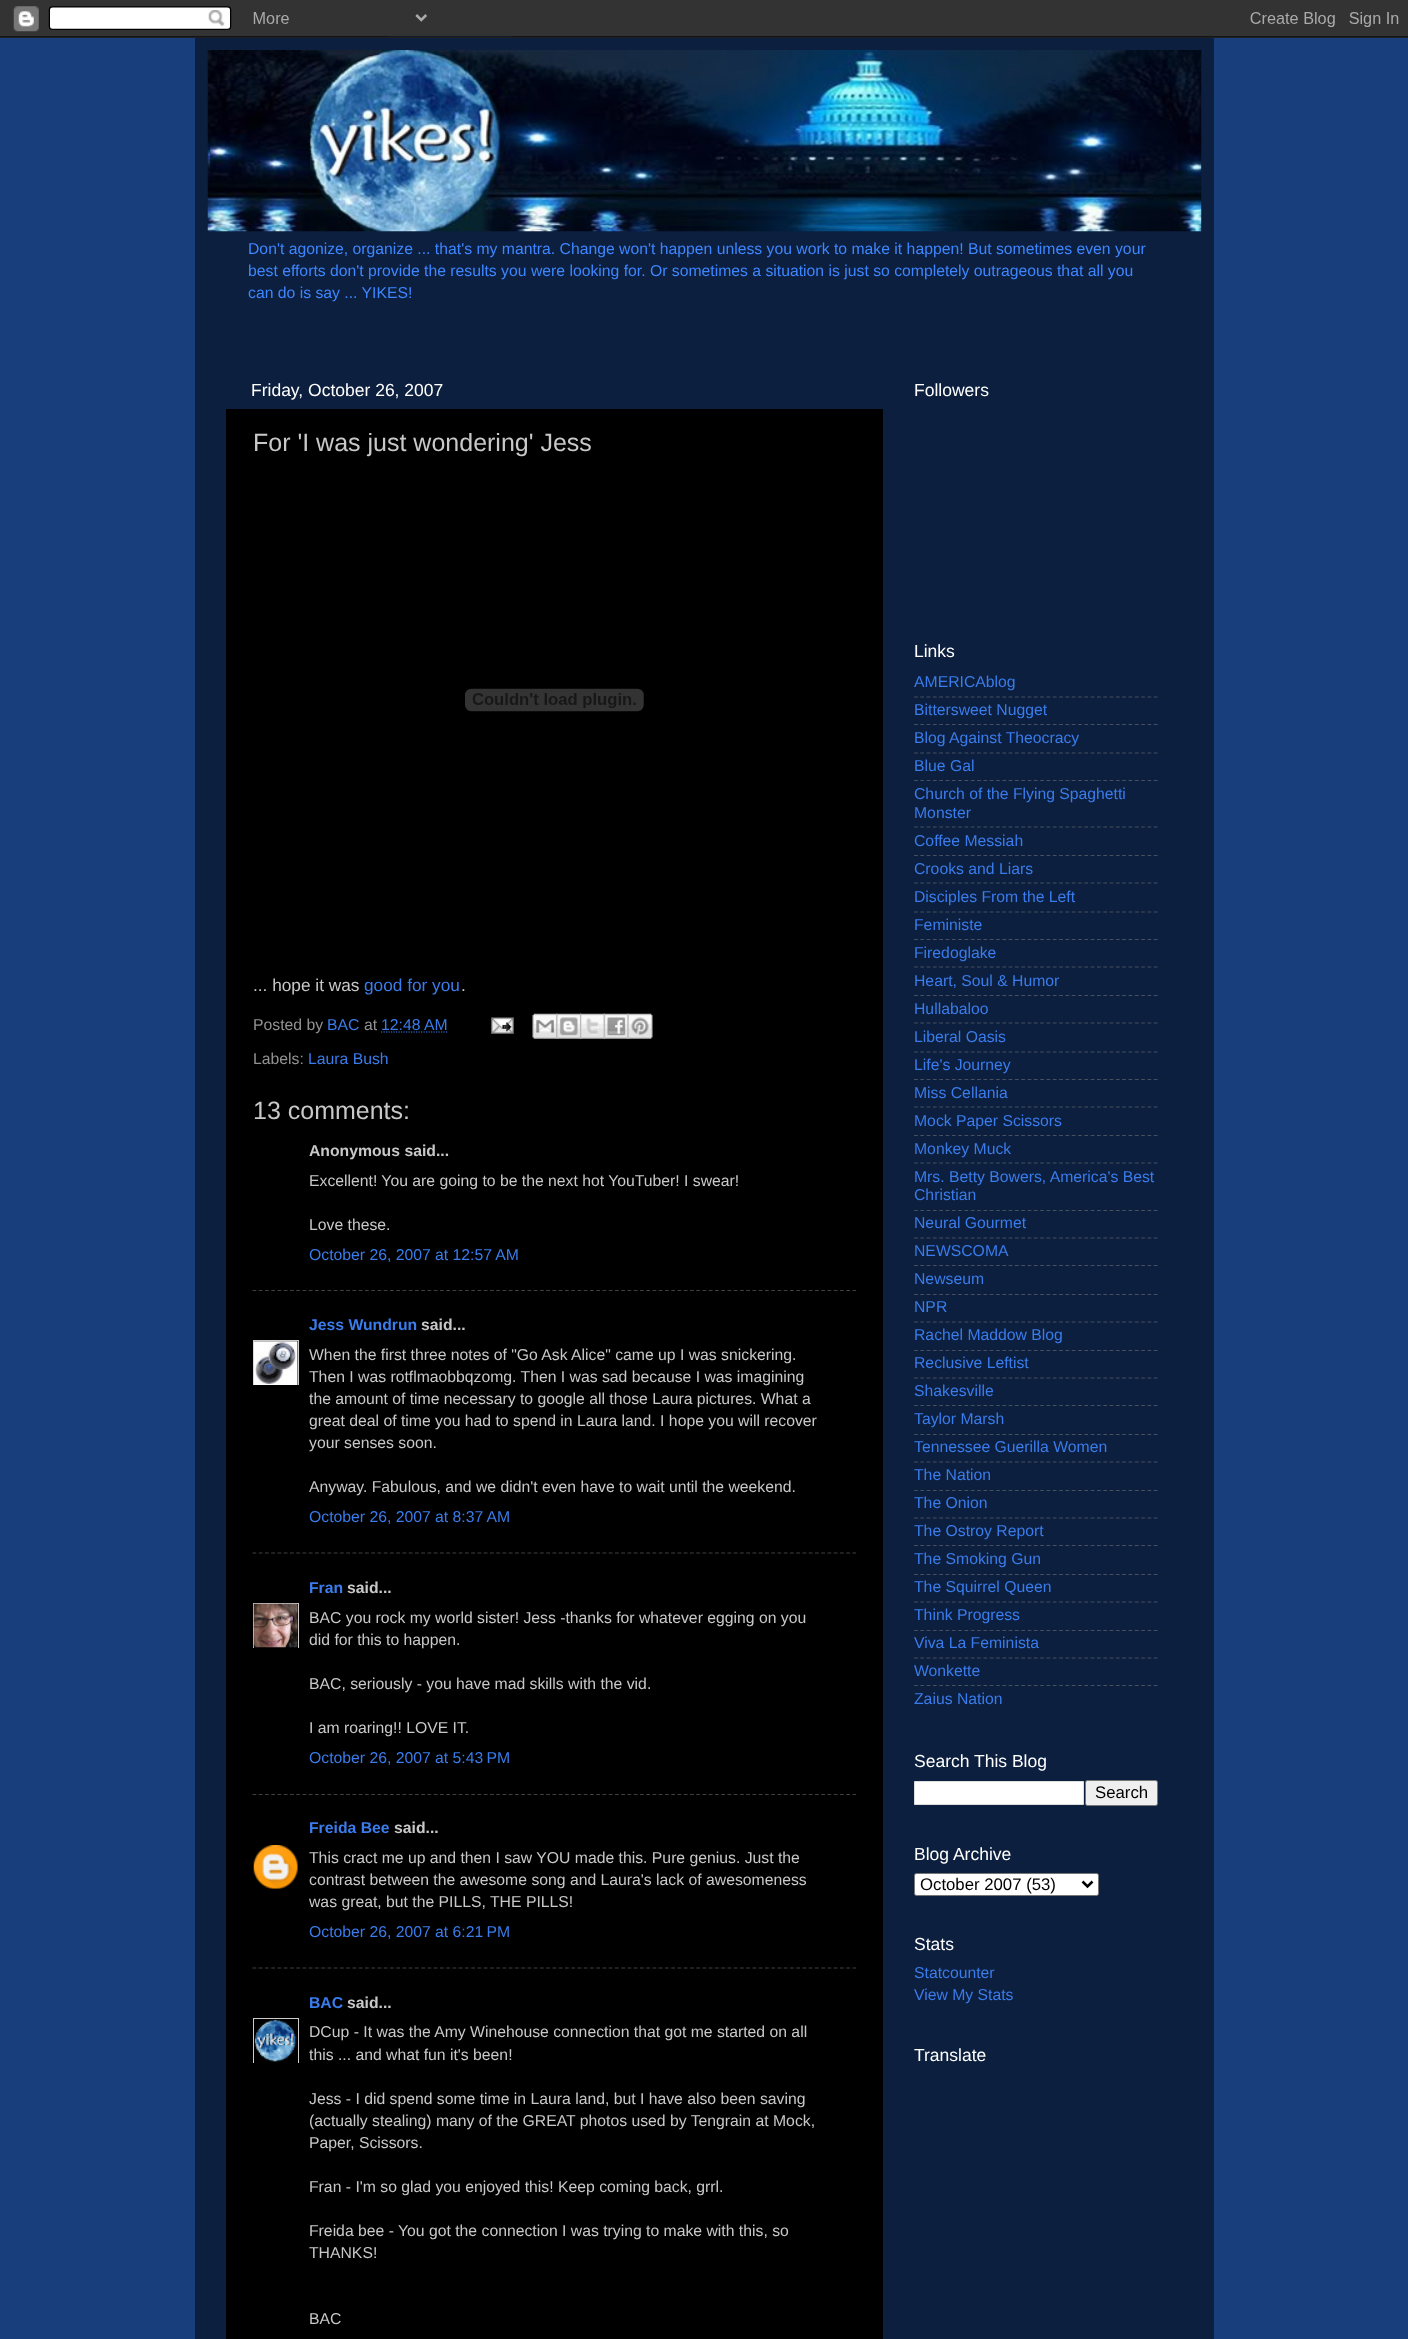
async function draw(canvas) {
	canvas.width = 1408;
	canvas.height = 2339;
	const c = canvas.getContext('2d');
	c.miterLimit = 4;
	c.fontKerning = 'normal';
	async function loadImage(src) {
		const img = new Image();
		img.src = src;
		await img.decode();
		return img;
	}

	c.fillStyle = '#183e7c';
	c.fillRect(0, 0, 1408, 2339);
	c.drawImage(await loadImage('img1.png'), 0, 0, 1408, 38);
	c.fillStyle = '#00000080';
	c.fillRect(195, 38, 1019, 2301);
	c.drawImage(await loadImage('img2.png'), 207, 50, 995, 182);
	c.font = '15.75px Liberation Sans';
	c.fillStyle = '#3e86ff';
	for (const [text, x, y] of [
		['Don\'t agonize, organize ... that\'s my mantra. Change won\'t happen unless you work to make it happen! But sometimes even your', 248, 254],
		['best efforts don\'t provide the results you were looking for. Or sometimes a situation is just so completely outrageous that all you', 248, 276],
		['can do is say ... YIKES!', 248, 298],
	]) {
		c.fillText(text, x, y);
	}
	c.font = '17.5px Liberation Sans';
	c.fillStyle = '#fff';
	c.fillText('Friday, October 26, 2007', 251, 396);
	c.fillStyle = '#000';
	c.fillRect(226, 409, 657, 1930);
	c.font = '25px Liberation Sans';
	c.fillStyle = '#c8c8c8';
	c.fillText('For \'I was just wondering\' Jess', 253, 451);
	c.drawImage(await loadImage('img3.png'), 465, 688, 179, 24);
	c.font = '17.25px Liberation Sans';
	c.fillText('... hope it was', 253, 991);
	c.fillStyle = '#3a7ceb';
	c.fillText('good for you', 364, 991);
	c.fillStyle = '#c8c8c8';
	c.fillText('.', 461, 991);
	c.font = '15.75px Liberation Sans';
	c.fillStyle = '#929292';
	c.fillText('Posted by', 253, 1030);
	c.fillStyle = '#3a7ceb';
	c.fillText('BAC', 327, 1030);
	c.fillStyle = '#929292';
	c.fillText('at', 364, 1030);
	c.fillStyle = '#3a7ceb';
	c.fillText('12:48 AM', 381, 1030);
	c.beginPath();
	c.moveTo(381, 1032);
	c.lineTo(447.5, 1032);
	c.strokeStyle = '#3a7ceb';
	c.lineWidth = 1.2;
	c.setLineDash([1.25, 1.25]);
	c.stroke();
	c.drawImage(await loadImage('img4.png'), 491, 1017, 23, 17);
	c.drawImage(await loadImage('img5.png'), 532, 1013, 26, 26);
	c.drawImage(await loadImage('img6.png'), 556, 1013, 26, 26);
	c.drawImage(await loadImage('img7.png'), 580, 1013, 25, 26);
	c.drawImage(await loadImage('img8.png'), 603, 1013, 26, 26);
	c.drawImage(await loadImage('img9.png'), 627, 1013, 26, 26);
	c.fillStyle = '#929292';
	c.fillText('Labels:', 253, 1064);
	c.fillStyle = '#3a7ceb';
	c.fillText('Laura Bush', 308, 1064);
	c.font = '25px Liberation Sans';
	c.fillStyle = '#c8c8c8';
	c.fillText('13 comments:', 253, 1119);
	c.font = 'bold 15.75px Liberation Sans';
	c.fillText('Anonymous said...', 309, 1156);
	c.font = '15.75px Liberation Sans';
	c.fillText('Excellent! You are going to be the next hot YouTuber! I swear!', 309, 1186);
	c.fillText('Love these.', 309, 1230);
	c.fillStyle = '#3a7ceb';
	c.fillText('October 26, 2007 at 12:57 AM', 309, 1260);
	c.beginPath();
	c.moveTo(252.5, 1290.5);
	c.lineTo(856, 1290.5);
	c.strokeStyle = '#404040';
	c.setLineDash([3.75, 2.5]);
	c.stroke();
	c.font = 'bold 15.75px Liberation Sans';
	c.fillText('Jess Wundrun', 309, 1330);
	c.fillStyle = '#c8c8c8';
	c.fillText('said...', 421, 1330);
	c.save();
	c.beginPath();
	c.rect(253, 1340, 46, 45);
	c.clip();
	c.strokeStyle = '#ccc';
	c.lineWidth = 1;
	c.setLineDash([]);
	c.strokeRect(253.5, 1340.5, 45, 45);
	c.restore();
	c.drawImage(await loadImage('img10.png'), 253, 1341, 45, 44);
	c.font = '15.75px Liberation Sans';
	for (const [text, x, y] of [
		['When the first three notes of "Go Ask Alice" came up I was snickering.', 309, 1360],
		['Then I was rotflmaobbqzomg. Then I was sad because I was imagining', 309, 1382],
		['the amount of time necessary to google all those Laura pictures. What a', 309, 1404],
		['great deal of time you had to spend in Laura land. I hope you will recover', 309, 1426],
		['your senses soon.', 309, 1448],
		['Anyway. Fabulous, and we didn\'t even have to wait until the weekend.', 309, 1492],
	]) {
		c.fillText(text, x, y);
	}
	c.fillStyle = '#3a7ceb';
	c.fillText('October 26, 2007 at 8:37 AM', 309, 1522);
	c.beginPath();
	c.moveTo(252.5, 1553);
	c.lineTo(856, 1553);
	c.stroke();
	c.font = 'bold 15.75px Liberation Sans';
	c.fillText('Fran', 309, 1593);
	c.fillStyle = '#c8c8c8';
	c.fillText('said...', 347, 1593);
	c.save();
	c.beginPath();
	c.rect(253, 1603, 46, 45);
	c.clip();
	c.strokeStyle = '#ccc';
	c.lineWidth = 1;
	c.setLineDash([]);
	c.strokeRect(253.5, 1603.5, 45, 45);
	c.restore();
	c.drawImage(await loadImage('img11.png'), 253, 1603, 45, 45);
	c.font = '15.75px Liberation Sans';
	for (const [text, x, y] of [
		['BAC you rock my world sister! Jess -thanks for whatever egging on you', 309, 1623],
		['did for this to happen.', 309, 1645],
		['BAC, seriously - you have mad skills with the vid.', 309, 1689],
		['I am roaring!! LOVE IT.', 309, 1733],
	]) {
		c.fillText(text, x, y);
	}
	c.fillStyle = '#3a7ceb';
	c.fillText('October 26, 2007 at 5:43 PM', 309, 1763);
	c.beginPath();
	c.moveTo(252.5, 1794.5);
	c.lineTo(856, 1794.5);
	c.stroke();
	c.font = 'bold 15.75px Liberation Sans';
	c.fillText('Freida Bee', 309, 1833);
	c.fillStyle = '#c8c8c8';
	c.fillText('said...', 394, 1833);
	c.drawImage(await loadImage('img12.png'), 253, 1845, 45, 44);
	c.font = '15.75px Liberation Sans';
	for (const [text, x, y] of [
		['This cract me up and then I saw YOU made this. Pure genius. Just the', 309, 1863],
		['contrast between the awesome song and Laura\'s lack of awesomeness', 309, 1885],
		['was great, but the PILLS,', 309, 1907],
		['THE PILLS!', 490, 1907],
	]) {
		c.fillText(text, x, y);
	}
	c.fillStyle = '#3a7ceb';
	c.fillText('October 26, 2007 at 6:21 PM', 309, 1937);
	c.beginPath();
	c.moveTo(252.5, 1968);
	c.lineTo(856, 1968);
	c.stroke();
	c.font = 'bold 15.75px Liberation Sans';
	c.fillText('BAC', 309, 2008);
	c.fillStyle = '#c8c8c8';
	c.fillText('said...', 347, 2008);
	c.save();
	c.beginPath();
	c.rect(253, 2018, 46, 45);
	c.clip();
	c.strokeStyle = '#ccc';
	c.lineWidth = 1;
	c.setLineDash([]);
	c.strokeRect(253.5, 2018.5, 45, 45);
	c.restore();
	c.drawImage(await loadImage('img13.png'), 254, 2019, 43, 43);
	c.font = '15.75px Liberation Sans';
	for (const [text, x, y] of [
		['DCup - It was the Amy Winehouse connection that got me started on all', 309, 2037],
		['this ... and what fun it\'s been!', 309, 2060],
		['Jess - I did spend some time in Laura land, but I have also been saving', 309, 2104],
		['(actually stealing) many of the GREAT photos used by Tengrain at Mock,', 309, 2126],
		['Paper, Scissors.', 309, 2148],
		['Fran - I\'m so glad you enjoyed this! Keep coming back, grrl.', 309, 2192],
		['Freida bee - You got the connection I was trying to make with this, so', 309, 2236],
		['THANKS!', 309, 2258],
		['BAC', 309, 2324],
	]) {
		c.fillText(text, x, y);
	}
	c.font = '17.5px Liberation Sans';
	c.fillStyle = '#fff';
	c.fillText('Followers', 914, 396);
	c.fillText('Links', 914, 657);
	c.font = '15.75px Liberation Sans';
	c.fillStyle = '#3a7ceb';
	c.fillText('AMERICAblog', 914, 687);
	c.beginPath();
	c.moveTo(914, 697);
	c.lineTo(1157.5, 697);
	c.strokeStyle = '#46505f';
	c.setLineDash([3.75, 2.56]);
	c.stroke();
	c.fillText('Bittersweet Nugget', 914, 715);
	c.beginPath();
	c.moveTo(914, 724.5);
	c.lineTo(1157.5, 724.5);
	c.stroke();
	c.fillText('Blog Against Theocracy', 914, 743);
	c.beginPath();
	c.moveTo(914, 753);
	c.lineTo(1157.5, 753);
	c.stroke();
	c.fillText('Blue Gal', 914, 771);
	c.beginPath();
	c.moveTo(914, 780.5);
	c.lineTo(1157.5, 780.5);
	c.stroke();
	c.fillText('Church of the Flying Spaghetti', 914, 799);
	c.fillText('Monster', 914, 818);
	c.beginPath();
	c.moveTo(914, 827);
	c.lineTo(1157.5, 827);
	c.stroke();
	c.fillText('Coffee Messiah', 914, 846);
	c.beginPath();
	c.moveTo(914, 855.5);
	c.lineTo(1157.5, 855.5);
	c.stroke();
	c.fillText('Crooks and Liars', 914, 874);
	c.beginPath();
	c.moveTo(914, 883);
	c.lineTo(1157.5, 883);
	c.stroke();
	c.fillText('Disciples From the Left', 914, 902);
	c.beginPath();
	c.moveTo(914, 912);
	c.lineTo(1157.5, 912);
	c.stroke();
	c.fillText('Feministe', 914, 930);
	c.beginPath();
	c.moveTo(914, 939.5);
	c.lineTo(1157.5, 939.5);
	c.stroke();
	c.fillText('Firedoglake', 914, 958);
	c.beginPath();
	c.moveTo(914, 967);
	c.lineTo(1157.5, 967);
	c.stroke();
	c.fillText('Heart, Soul & Humor', 914, 986);
	c.beginPath();
	c.moveTo(914, 995.5);
	c.lineTo(1157.5, 995.5);
	c.stroke();
	c.fillText('Hullabaloo', 914, 1014);
	c.beginPath();
	c.moveTo(914, 1023);
	c.lineTo(1157.5, 1023);
	c.stroke();
	c.fillText('Liberal Oasis', 914, 1042);
	c.beginPath();
	c.moveTo(914, 1052);
	c.lineTo(1157.5, 1052);
	c.stroke();
	c.fillText('Life\'s Journey', 914, 1070);
	c.beginPath();
	c.moveTo(914, 1079.5);
	c.lineTo(1157.5, 1079.5);
	c.stroke();
	c.fillText('Miss Cellania', 914, 1098);
	c.beginPath();
	c.moveTo(914, 1107);
	c.lineTo(1157.5, 1107);
	c.stroke();
	c.fillText('Mock Paper Scissors', 914, 1126);
	c.beginPath();
	c.moveTo(914, 1135.5);
	c.lineTo(1157.5, 1135.5);
	c.stroke();
	c.fillText('Monkey Muck', 914, 1154);
	c.beginPath();
	c.moveTo(914, 1163);
	c.lineTo(1157.5, 1163);
	c.stroke();
	c.fillText('Mrs. Betty Bowers, America\'s Best', 914, 1182);
	c.fillText('Christian', 914, 1200);
	c.beginPath();
	c.moveTo(914, 1210.5);
	c.lineTo(1157.5, 1210.5);
	c.stroke();
	c.fillText('Neural Gourmet', 914, 1228);
	c.beginPath();
	c.moveTo(914, 1238);
	c.lineTo(1157.5, 1238);
	c.stroke();
	c.fillText('NEWSCOMA', 914, 1256);
	c.beginPath();
	c.moveTo(914, 1265.5);
	c.lineTo(1157.5, 1265.5);
	c.stroke();
	c.fillText('Newseum', 914, 1284);
	c.beginPath();
	c.moveTo(914, 1294.5);
	c.lineTo(1157.5, 1294.5);
	c.stroke();
	c.fillText('NPR', 914, 1312);
	c.beginPath();
	c.moveTo(914, 1322);
	c.lineTo(1157.5, 1322);
	c.stroke();
	c.fillText('Rachel Maddow Blog', 914, 1340);
	c.beginPath();
	c.moveTo(914, 1350.5);
	c.lineTo(1157.5, 1350.5);
	c.stroke();
	c.fillText('Reclusive Leftist', 914, 1368);
	c.beginPath();
	c.moveTo(914, 1378);
	c.lineTo(1157.5, 1378);
	c.stroke();
	c.fillText('Shakesville', 914, 1396);
	c.beginPath();
	c.moveTo(914, 1405.5);
	c.lineTo(1157.5, 1405.5);
	c.stroke();
	c.fillText('Taylor Marsh', 914, 1424);
	c.beginPath();
	c.moveTo(914, 1434.5);
	c.lineTo(1157.5, 1434.5);
	c.stroke();
	c.fillText('Tennessee Guerilla Women', 914, 1452);
	c.beginPath();
	c.moveTo(914, 1462);
	c.lineTo(1157.5, 1462);
	c.stroke();
	c.fillText('The Nation', 914, 1480);
	c.beginPath();
	c.moveTo(914, 1490.5);
	c.lineTo(1157.5, 1490.5);
	c.stroke();
	c.fillText('The Onion', 914, 1508);
	c.beginPath();
	c.moveTo(914, 1518);
	c.lineTo(1157.5, 1518);
	c.stroke();
	c.fillText('The Ostroy Report', 914, 1536);
	c.beginPath();
	c.moveTo(914, 1545.5);
	c.lineTo(1157.5, 1545.5);
	c.stroke();
	c.fillText('The Smoking Gun', 914, 1564);
	c.beginPath();
	c.moveTo(914, 1574.5);
	c.lineTo(1157.5, 1574.5);
	c.stroke();
	c.fillText('The Squirrel Queen', 914, 1592);
	c.beginPath();
	c.moveTo(914, 1602);
	c.lineTo(1157.5, 1602);
	c.stroke();
	c.fillText('Think Progress', 914, 1620);
	c.beginPath();
	c.moveTo(914, 1630.5);
	c.lineTo(1157.5, 1630.5);
	c.stroke();
	c.fillText('Viva La Feminista', 914, 1648);
	c.beginPath();
	c.moveTo(914, 1658);
	c.lineTo(1157.5, 1658);
	c.stroke();
	c.fillText('Wonkette', 914, 1676);
	c.beginPath();
	c.moveTo(914, 1685.5);
	c.lineTo(1157.5, 1685.5);
	c.stroke();
	c.fillText('Zaius Nation', 914, 1704);
	c.font = '17.5px Liberation Sans';
	c.fillStyle = '#fff';
	c.fillText('Search This Blog', 914, 1767);
	c.beginPath();
	c.rect(914.5, 1781.5, 169, 23);
	c.fill();
	c.strokeStyle = '#ddd';
	c.lineWidth = 1;
	c.setLineDash([]);
	c.stroke();
	c.fillStyle = '#efefef';
	c.beginPath();
	c.roundRect(1085.5, 1780.5, 72, 25, 2);
	c.fill();
	c.strokeStyle = '#767676';
	c.stroke();
	c.font = '16.75px Liberation Sans';
	c.fillStyle = '#000';
	c.fillText('Search', 1095, 1798);
	c.font = '17.5px Liberation Sans';
	c.fillStyle = '#fff';
	c.fillText('Blog Archive', 914, 1860);
	c.beginPath();
	c.roundRect(914.5, 1873.5, 184, 22, 2);
	c.fill();
	c.stroke();
	c.beginPath();
	c.moveTo(1082.5, 1881.5);
	c.lineTo(1087.5, 1886.5);
	c.lineTo(1092.5, 1881.5);
	c.strokeStyle = '#000';
	c.lineWidth = 2.5;
	c.stroke();
	c.font = '16.75px Liberation Sans';
	c.fillStyle = '#000';
	c.fillText('October 2007 (53)', 920, 1890);
	c.font = '17.5px Liberation Sans';
	c.fillStyle = '#fff';
	c.fillText('Stats', 914, 1950);
	c.font = '15.75px Liberation Sans';
	c.fillStyle = '#3a7ceb';
	c.fillText('Statcounter', 914, 1978);
	c.fillText('View My Stats', 914, 2000);
	c.font = '17.5px Liberation Sans';
	c.fillStyle = '#fff';
	c.fillText('Translate', 914, 2061);
}

draw(document.querySelector('canvas'));
